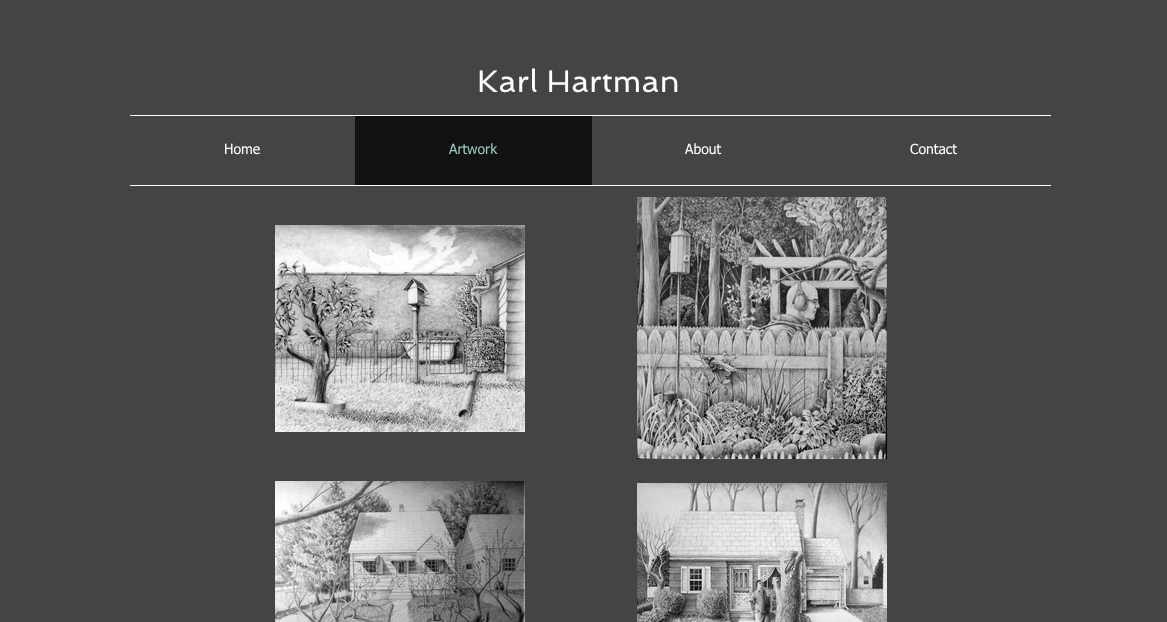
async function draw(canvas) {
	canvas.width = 1167;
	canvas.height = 622;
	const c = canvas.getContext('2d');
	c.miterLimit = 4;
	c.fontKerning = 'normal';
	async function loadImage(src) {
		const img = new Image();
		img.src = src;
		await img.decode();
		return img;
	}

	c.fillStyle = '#444';
	c.fillRect(0, 0, 1167, 622);
	c.font = '31px Spinnaker';
	c.fillStyle = '#fff';
	c.fillText('Karl Hartman', 477, 92);
	c.fillRect(130, 115, 921, 1);
	c.fillRect(130, 185, 921, 1);
	c.font = '14px tahoma';
	c.fillText('Home', 224, 154);
	c.fillStyle = '#111';
	c.fillRect(355, 116, 237, 69);
	c.fillStyle = '#99c9c1';
	c.fillText('Artwork', 449, 154);
	c.fillStyle = '#fff';
	c.fillText('About', 685, 154);
	c.fillText('Contact', 910, 154);
	c.drawImage(await loadImage('img1.png'), 275, 225, 250, 207);
	c.drawImage(await loadImage('img2.png'), 637, 197, 250, 262);
	c.drawImage(await loadImage('img3.png'), 275, 481, 250, 141);
	c.drawImage(await loadImage('img4.png'), 637, 483, 250, 139);
}

draw(document.querySelector('canvas'));
